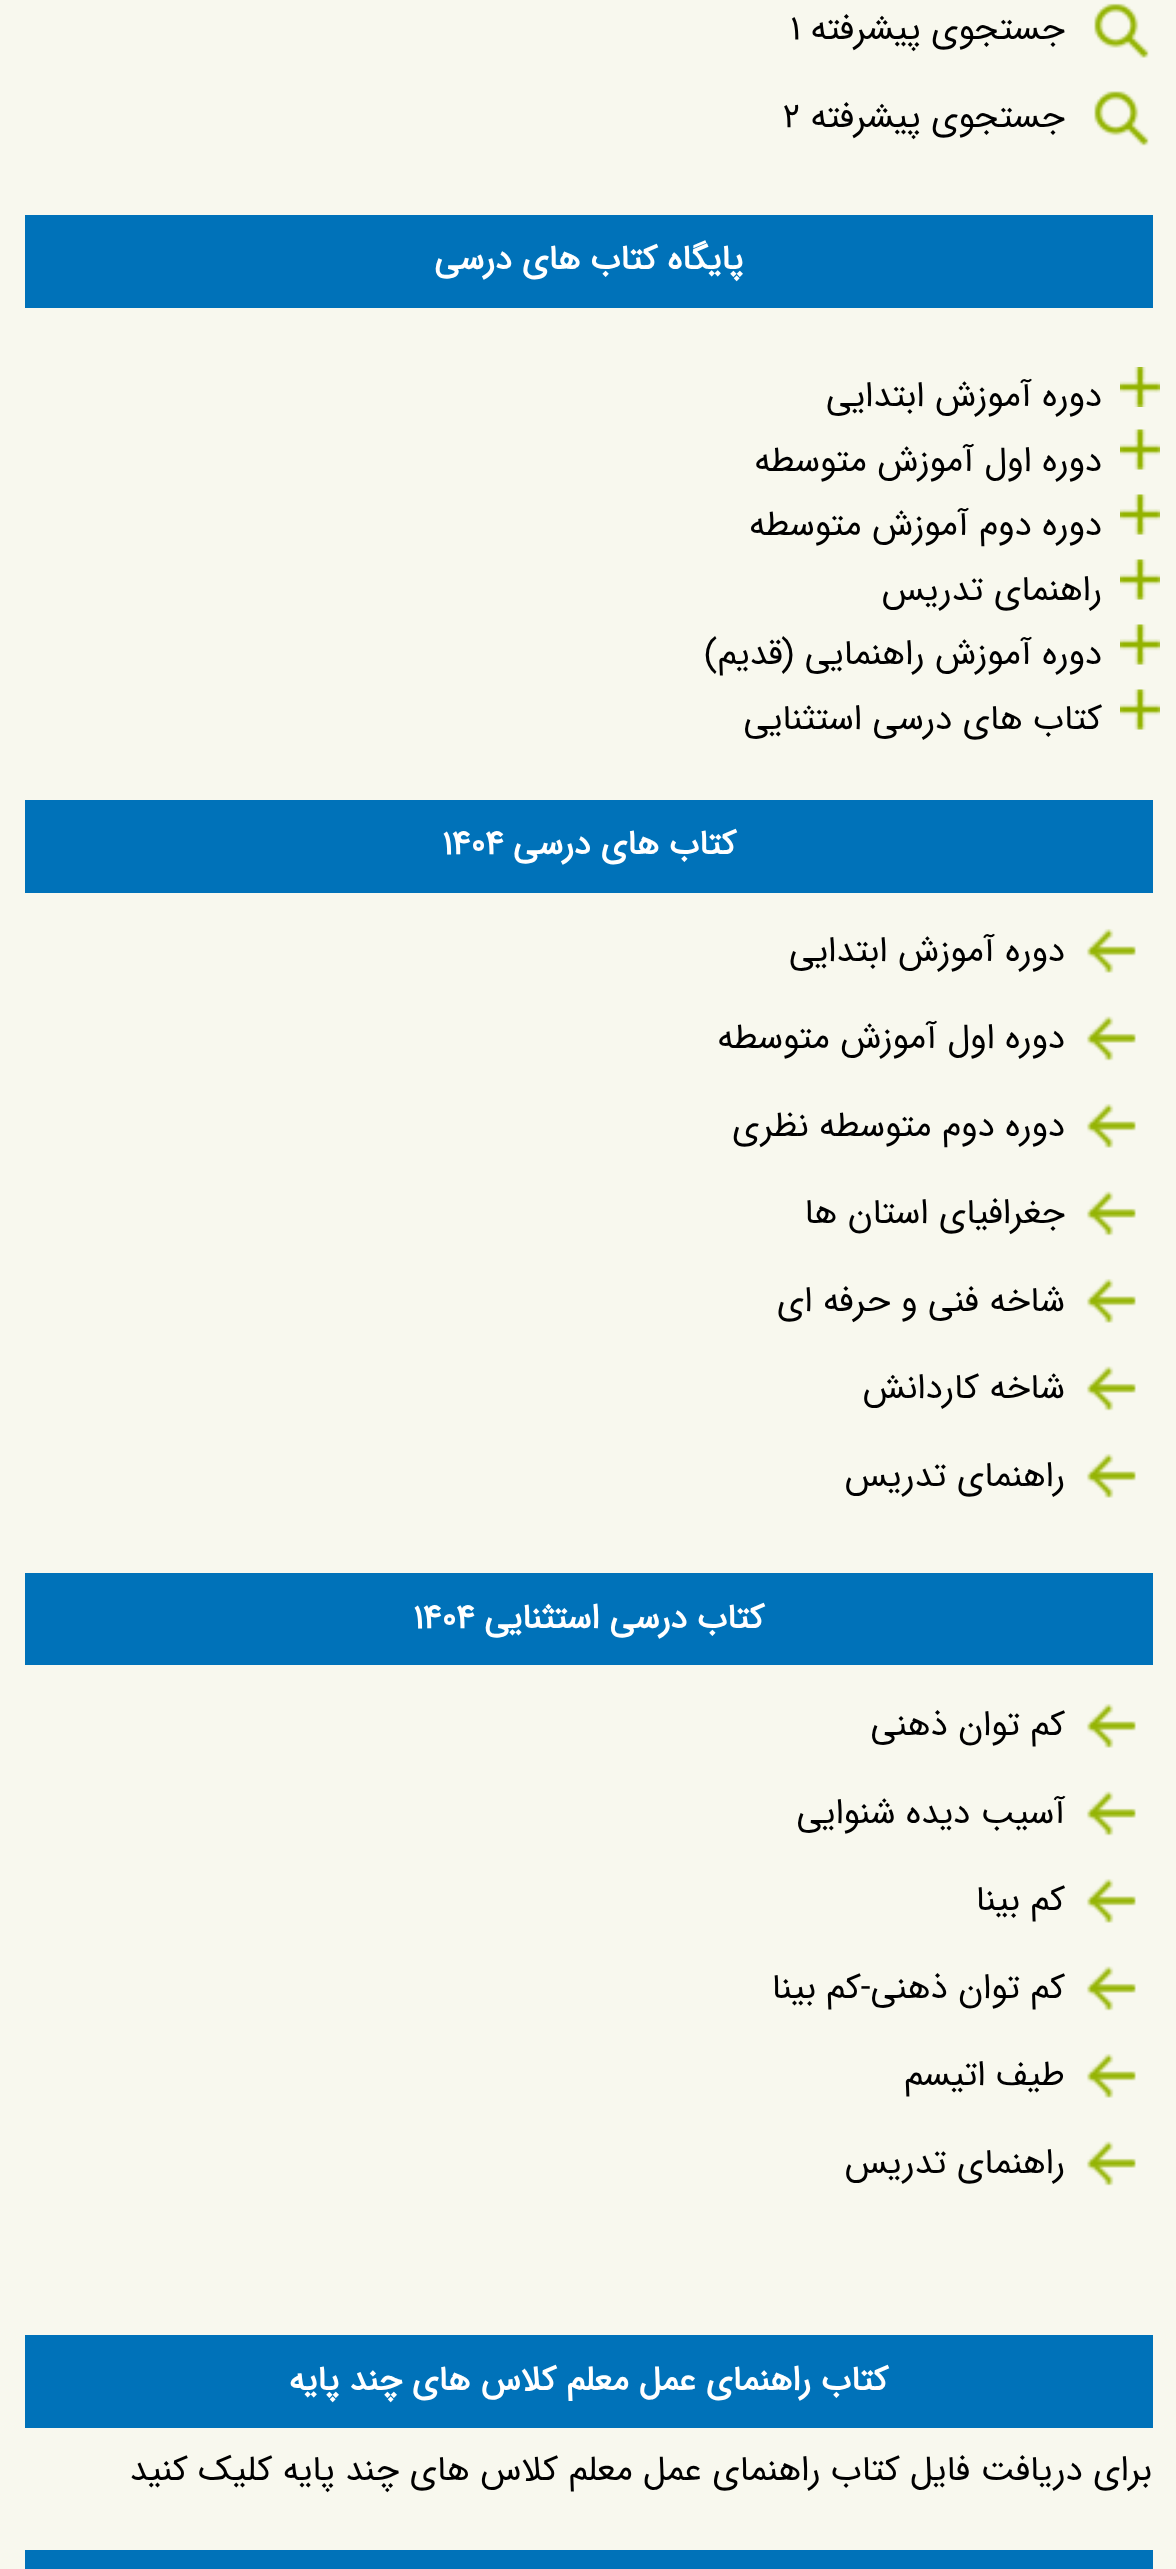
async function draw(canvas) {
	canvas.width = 1176;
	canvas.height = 2569;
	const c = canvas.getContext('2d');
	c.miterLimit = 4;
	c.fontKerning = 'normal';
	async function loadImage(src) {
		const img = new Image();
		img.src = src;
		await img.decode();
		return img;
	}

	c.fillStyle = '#f8f8ee';
	c.fillRect(0, 0, 1176, 2569);
	c.drawImage(await loadImage('img1.png'), 1094, 3, 55, 55);
	c.direction = 'rtl';
	c.font = '35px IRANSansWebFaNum';
	c.fillStyle = '#000';
	c.fillText('جستجوی پیشرفته', 1065, 39);
	c.direction = 'ltr';
	c.fillText('1', 790, 39);
	c.drawImage(await loadImage('img2.png'), 1094, 91, 55, 55);
	c.direction = 'rtl';
	c.fillText('جستجوی پیشرفته', 1065, 127);
	c.direction = 'ltr';
	c.fillText('2', 783, 127);
	c.fillStyle = '#0072b9';
	c.fillRect(25, 215, 1128, 93);
	c.direction = 'rtl';
	c.font = 'bold 34px IRANSansWebFaNum';
	c.fillStyle = '#fff';
	c.fillText('پایگاه کتاب های درسی', 743, 269);
	c.drawImage(await loadImage('img3.png'), 1120, 367, 40, 40);
	c.font = '35px IRANSansWebFaNum';
	c.fillStyle = '#000';
	c.fillText('دوره آموزش ابتدایی', 1102, 406);
	c.drawImage(await loadImage('img4.png'), 1120, 429, 40, 41);
	c.fillText('دوره اول آموزش متوسطه', 1102, 471);
	c.drawImage(await loadImage('img4.png'), 1120, 494, 40, 41);
	c.fillText('دوره دوم آموزش متوسطه', 1102, 535);
	c.drawImage(await loadImage('img4.png'), 1120, 559, 40, 41);
	c.fillText('راهنمای تدریس', 1102, 600);
	c.drawImage(await loadImage('img4.png'), 1120, 624, 40, 41);
	c.fillText('دوره آموزش راهنمایی (قدیم)', 1102, 664);
	c.drawImage(await loadImage('img4.png'), 1120, 689, 40, 41);
	c.fillText('کتاب های درسی استثنایی', 1102, 729);
	c.fillStyle = '#0072b9';
	c.fillRect(25, 800, 1128, 93);
	c.font = 'bold 34px IRANSansWebFaNum';
	c.fillStyle = '#fff';
	c.fillText('کتاب های درسی', 736, 854);
	c.direction = 'ltr';
	c.fillText('1404', 442, 854);
	c.drawImage(await loadImage('img5.png'), 1086, 928, 50, 45);
	c.direction = 'rtl';
	c.font = '35px IRANSansWebFaNum';
	c.fillStyle = '#000';
	c.fillText('دوره آموزش ابتدایی', 1065, 961);
	c.drawImage(await loadImage('img6.png'), 1086, 1016, 50, 45);
	c.fillText('دوره اول آموزش متوسطه', 1065, 1048);
	c.drawImage(await loadImage('img5.png'), 1086, 1103, 50, 45);
	c.fillText('دوره دوم متوسطه نظری', 1065, 1136);
	c.drawImage(await loadImage('img6.png'), 1086, 1191, 50, 45);
	c.fillText('جغرافیای استان ها', 1065, 1223);
	c.drawImage(await loadImage('img5.png'), 1086, 1278, 50, 45);
	c.fillText('شاخه فنی و حرفه ای', 1065, 1311);
	c.drawImage(await loadImage('img6.png'), 1086, 1366, 50, 45);
	c.fillText('شاخه کاردانش', 1065, 1398);
	c.drawImage(await loadImage('img7.png'), 1086, 1453, 50, 45);
	c.fillText('راهنمای تدریس', 1065, 1486);
	c.fillStyle = '#0072b9';
	c.fillRect(25, 1573, 1128, 92);
	c.font = 'bold 34px IRANSansWebFaNum';
	c.fillStyle = '#fff';
	c.fillText('کتاب درسی استثنایی', 764, 1628);
	c.direction = 'ltr';
	c.fillText('1404', 413, 1628);
	c.drawImage(await loadImage('img5.png'), 1086, 1703, 50, 45);
	c.direction = 'rtl';
	c.font = '35px IRANSansWebFaNum';
	c.fillStyle = '#000';
	c.fillText('کم توان ذهنی', 1065, 1735);
	c.drawImage(await loadImage('img6.png'), 1086, 1791, 50, 45);
	c.fillText('آسیب دیده شنوایی', 1065, 1823);
	c.drawImage(await loadImage('img8.png'), 1086, 1878, 50, 45);
	c.fillText('کم بینا', 1065, 1910);
	c.drawImage(await loadImage('img6.png'), 1086, 1966, 50, 45);
	c.fillText('کم توان ذهنی-کم بینا', 1065, 1998);
	c.drawImage(await loadImage('img5.png'), 1086, 2053, 50, 45);
	c.fillText('طیف اتیسم', 1065, 2085);
	c.drawImage(await loadImage('img9.png'), 1086, 2141, 50, 45);
	c.fillText('راهنمای تدریس', 1065, 2173);
	c.fillStyle = '#0072b9';
	c.fillRect(25, 2335, 1128, 93);
	c.font = 'bold 34px IRANSansWebFaNum';
	c.fillStyle = '#fff';
	c.fillText('کتاب راهنمای عمل معلم کلاس های چند پایه', 888, 2390);
	c.font = '35px IRANSansWebFaNum';
	c.fillStyle = '#000';
	c.fillText('برای دریافت فایل کتاب راهنمای عمل معلم کلاس های چند پایه کلیک کنید', 1152, 2480);
	c.fillStyle = '#0072b9';
	c.fillRect(25, 2550, 1128, 19);
}

draw(document.querySelector('canvas'));
